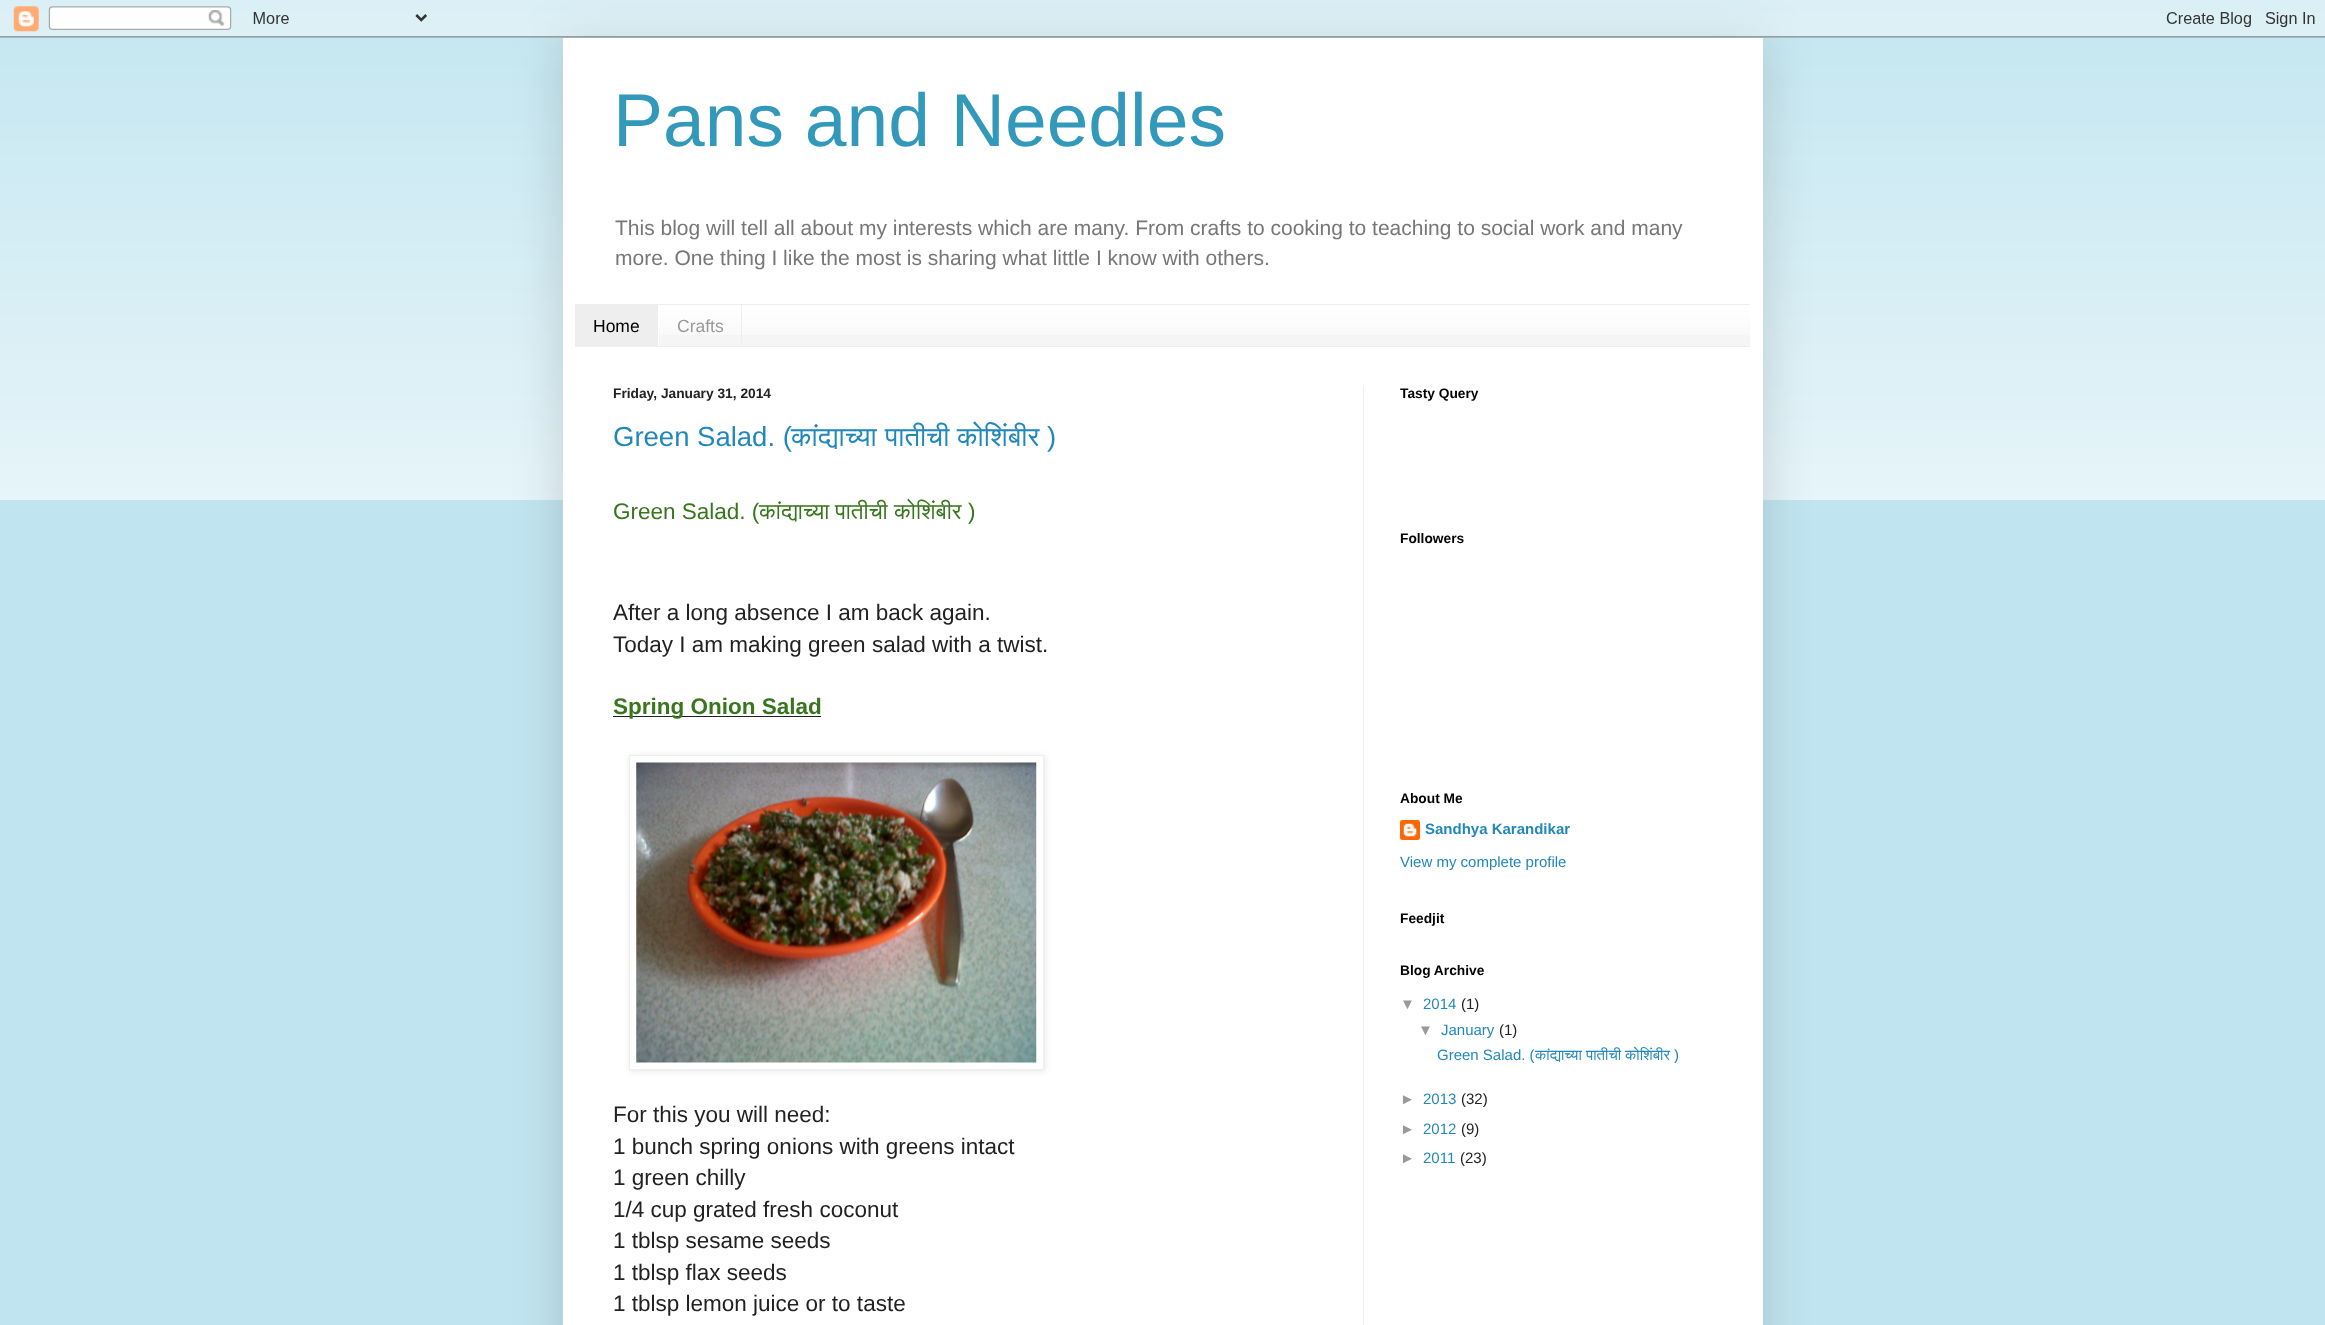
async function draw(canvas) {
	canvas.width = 2325;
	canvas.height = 1325;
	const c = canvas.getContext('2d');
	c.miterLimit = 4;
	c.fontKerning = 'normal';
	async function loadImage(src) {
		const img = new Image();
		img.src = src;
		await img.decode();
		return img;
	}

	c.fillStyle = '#c1e5f0';
	c.fillRect(0, 0, 2325, 1325);
	c.drawImage(await loadImage('img2.png'), 0, 13, 2325, 487);
	c.fillStyle = '#00000026';
	c.filter = 'blur(25px)';
	c.beginPath();
	c.rect(563, 38, 1200, 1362);
	c.fill();
	c.filter = 'none';
	c.drawImage(await loadImage('img1.png'), 0, 0, 2325, 38);
	c.fillStyle = '#fff';
	c.fillRect(563, 38, 1200, 1287);
	c.font = '75px Liberation Sans';
	c.fillStyle = '#39b';
	c.fillText('Pans and Needles', 613, 146);
	c.font = '21px Liberation Sans';
	c.fillStyle = '#777';
	c.fillText('This blog will tell all about my interests which are many. From crafts to cooking to teaching to social work and many', 615, 235);
	c.fillText('more. One thing I like the most is sharing what little I know with others.', 615, 265);
	c.fillStyle = '#f5f5f5';
	c.fillRect(659, 305, 1091, 41);
	c.drawImage(await loadImage('img3.png'), 659, 305, 1091, 30);
	for (const [x, y, w, h, color] of [
		[575, 304, 1175, 1, '#eee'],
		[575, 346, 1175, 1, '#eee'],
		[575, 305, 83, 41, '#eee'],
	]) {
		c.fillStyle = color;
		c.fillRect(x, y, w, h);
	}
	c.font = '17.5px Liberation Sans';
	c.fillStyle = '#000';
	c.fillText('Home', 593, 332);
	c.fillStyle = '#eee';
	c.fillRect(741, 305, 1, 41);
	c.fillStyle = '#999';
	c.fillText('Crafts', 677, 332);
	c.fillStyle = '#eee';
	c.fillRect(1363, 385, 1, 940);
	c.font = 'bold 13.75px Liberation Sans';
	c.fillStyle = '#222';
	c.fillText('Friday, January 31, 2014', 613, 398);
	c.font = '27.5px Liberation Sans';
	c.fillStyle = '#28b';
	c.fillText('Green Salad. (', 613, 446);
	c.font = '27.5px FreeSans';
	for (const [text, x, y] of [
		['कांद्याच्या', 791, 446],
		['पातीची', 885, 446],
		['कोशिंबीर', 957, 446],
	]) {
		c.fillText(text, x, y);
	}
	c.font = '27.5px Liberation Sans';
	c.fillText(')', 1047, 446);
	c.font = '22.5px Liberation Sans';
	c.fillStyle = '#38761d';
	c.fillText('Green Salad. (', 613, 519);
	c.font = '22.5px FreeSans';
	for (const [text, x, y] of [
		['कांद्याच्या', 759, 519],
		['पातीची', 835, 519],
		['कोशिंबीर', 894, 519],
	]) {
		c.fillText(text, x, y);
	}
	c.font = '22.5px Liberation Sans';
	c.fillText(')', 968, 519);
	c.fillStyle = '#222';
	c.fillText('After a long absence I am back again.', 613, 620);
	c.fillText('Today I am making green salad with a twist.', 613, 652);
	c.fillRect(613, 716, 208, 1);
	c.font = 'bold 22.5px Liberation Sans';
	c.fillStyle = '#38761d';
	c.fillText('Spring Onion Salad', 613, 714);
	c.fillStyle = '#0000001a';
	c.filter = 'blur(3px)';
	c.beginPath();
	c.rect(630, 756, 415, 315);
	c.fill();
	c.filter = 'none';
	c.fillStyle = '#fff';
	c.beginPath();
	c.rect(629.5, 755.5, 414, 314);
	c.fill();
	c.strokeStyle = '#eee';
	c.stroke();
	c.drawImage(await loadImage('img4.png'), 636, 762, 401, 301);
	c.font = '22.5px Liberation Sans';
	c.fillStyle = '#222';
	for (const [text, x, y] of [
		['For this you will need:', 613, 1122],
		['1 bunch spring onions with greens intact', 613, 1154],
		['1 green chilly', 613, 1185],
		['1/4 cup grated fresh coconut', 613, 1217],
		['1 tblsp sesame seeds', 613, 1248],
		['1 tblsp flax seeds', 613, 1280],
		['1 tblsp lemon juice or to taste', 613, 1311],
	]) {
		c.fillText(text, x, y);
	}
	c.font = 'bold 13.75px Liberation Sans';
	c.fillStyle = '#000';
	for (const [text, x, y] of [
		['Tasty Query', 1400, 398],
		['Followers', 1400, 543],
		['About Me', 1400, 803],
	]) {
		c.fillText(text, x, y);
	}
	c.drawImage(await loadImage('img5.png'), 1400, 820, 20, 20);
	c.font = 'bold 15px Liberation Sans';
	c.fillStyle = '#28b';
	c.fillText('Sandhya Karandikar', 1425, 834);
	c.font = '15px Liberation Sans';
	c.fillText('View my complete profile', 1400, 867);
	c.font = 'bold 13.75px Liberation Sans';
	c.fillStyle = '#000';
	c.fillText('Feedjit', 1400, 923);
	c.fillText('Blog Archive', 1400, 975);
	c.font = '15px Liberation Sans';
	c.fillStyle = '#999';
	c.fillText('▼', 1400, 1009);
	c.fillStyle = '#28b';
	c.fillText('2014', 1423, 1009);
	c.fillStyle = '#222';
	c.fillText('(1)', 1461, 1009);
	c.fillStyle = '#999';
	c.fillText('▼', 1418, 1035);
	c.fillStyle = '#28b';
	c.fillText('January', 1441, 1035);
	c.fillStyle = '#222';
	c.fillText('(1)', 1499, 1035);
	c.fillStyle = '#28b';
	c.fillText('Green Salad. (', 1437, 1060);
	c.font = '15px FreeSans';
	for (const [text, x, y] of [
		['कांद्याच्या', 1535, 1060],
		['पातीची', 1586, 1060],
		['कोशिंबीर', 1625, 1060],
	]) {
		c.fillText(text, x, y);
	}
	c.font = '15px Liberation Sans';
	c.fillText(')', 1674, 1060);
	c.fillStyle = '#999';
	c.fillText('►', 1400, 1104);
	c.fillStyle = '#28b';
	c.fillText('2013', 1423, 1104);
	c.fillStyle = '#222';
	c.fillText('(32)', 1461, 1104);
	c.fillStyle = '#999';
	c.fillText('►', 1400, 1134);
	c.fillStyle = '#28b';
	c.fillText('2012', 1423, 1134);
	c.fillStyle = '#222';
	c.fillText('(9)', 1461, 1134);
	c.fillStyle = '#999';
	c.fillText('►', 1400, 1163);
	c.fillStyle = '#28b';
	c.fillText('2011', 1423, 1163);
	c.fillStyle = '#222';
	c.fillText('(23)', 1460, 1163);
}

draw(document.querySelector('canvas'));
